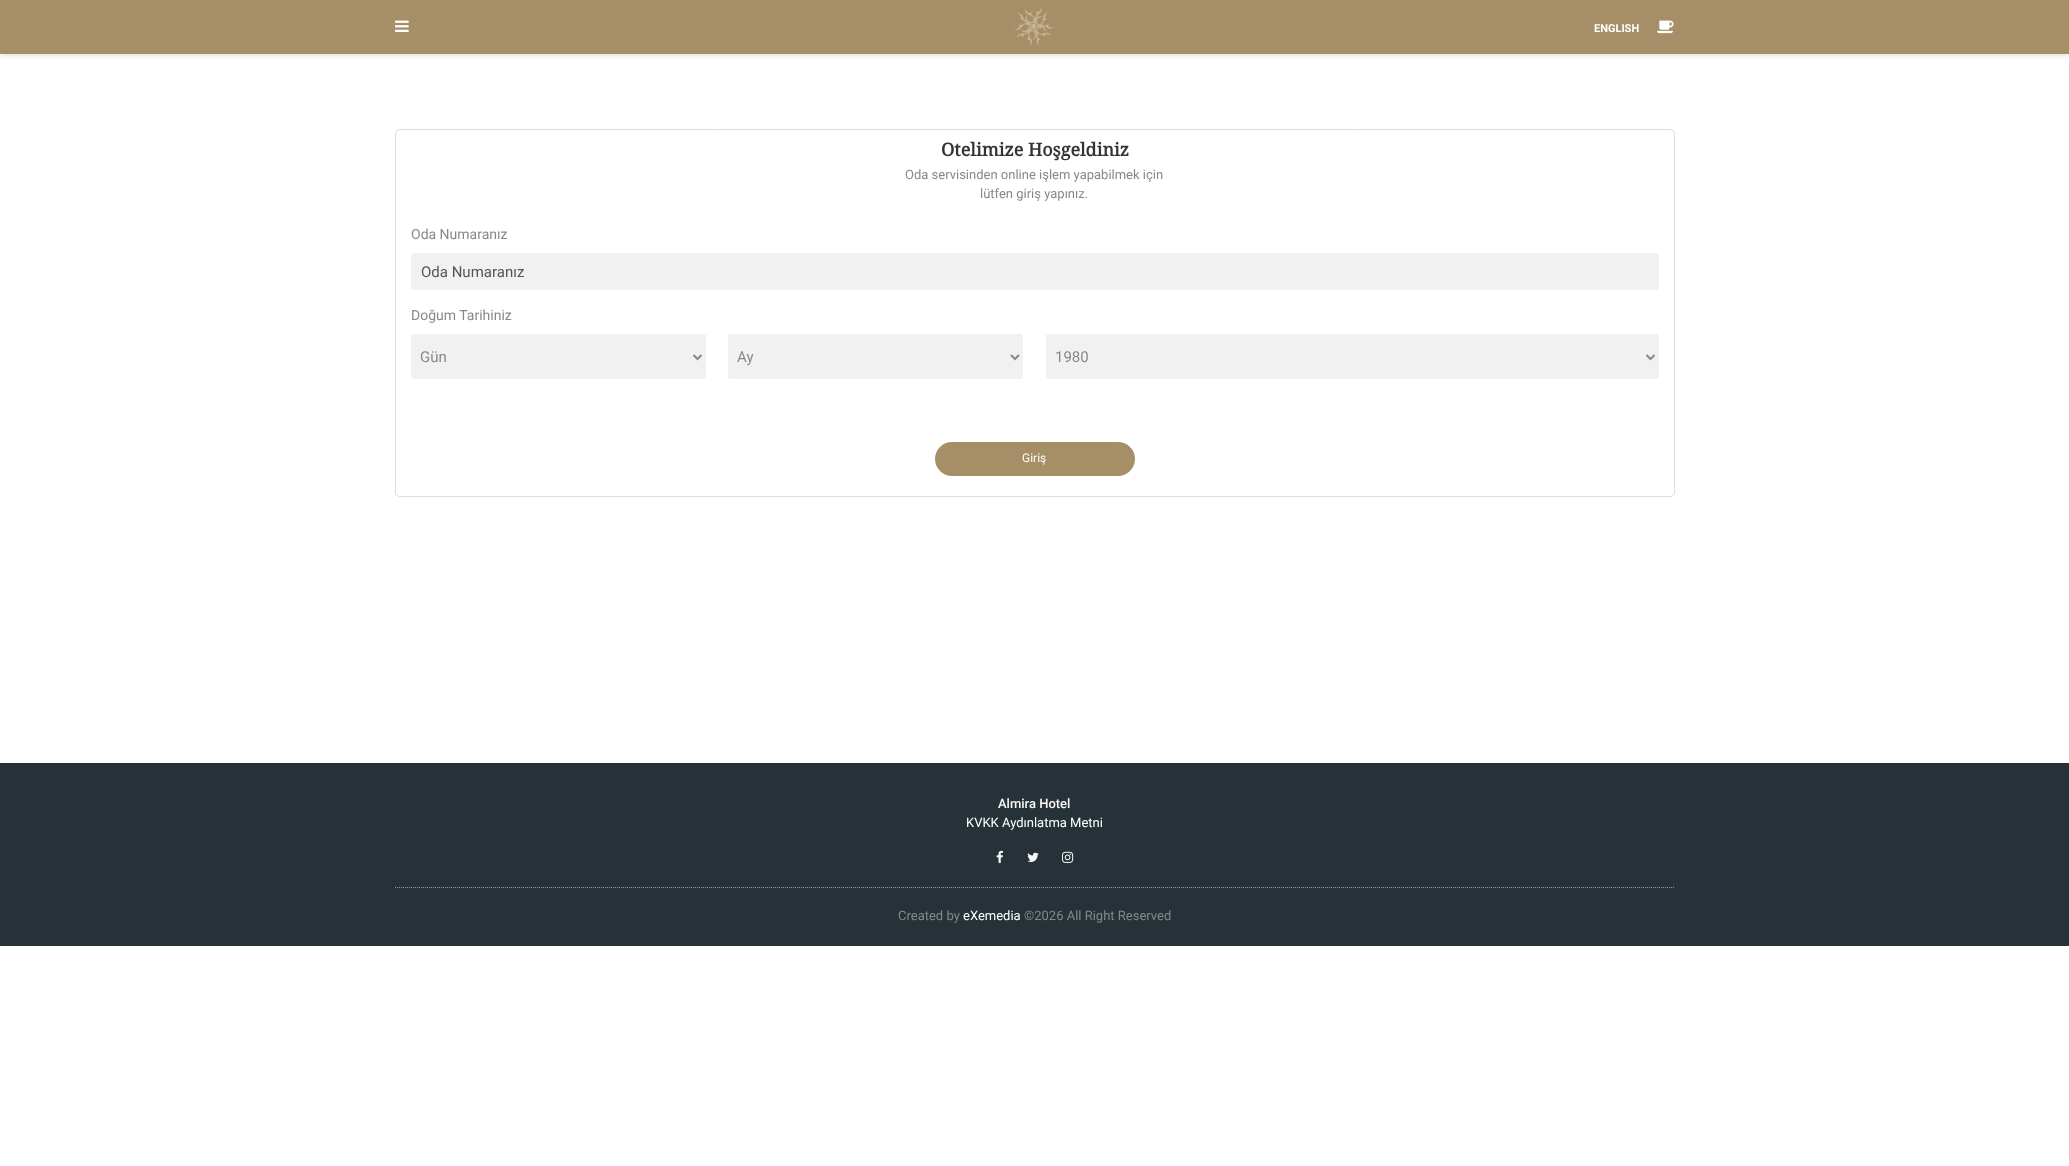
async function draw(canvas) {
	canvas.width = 2069;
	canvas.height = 1166;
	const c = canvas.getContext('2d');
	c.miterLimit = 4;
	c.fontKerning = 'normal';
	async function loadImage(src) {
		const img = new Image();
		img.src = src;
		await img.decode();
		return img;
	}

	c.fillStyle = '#fff';
	c.fillRect(0, 0, 2069, 1166);
	c.fillStyle = '#8c848469';
	c.filter = 'blur(3px)';
	c.beginPath();
	c.rect(0, 0, 2069, 54);
	c.fill();
	c.filter = 'none';
	c.fillStyle = '#a68f66';
	c.fillRect(0, 0, 2069, 54);
	c.drawImage(await loadImage('img1.png'), 395, 20, 14, 12);
	c.drawImage(await loadImage('img2.png'), 1014, 7, 40, 39);
	c.font = 'bold 11px Roboto';
	c.fillStyle = '#fff';
	c.fillText('ENGLISH', 1594, 32);
	c.drawImage(await loadImage('img3.png'), 1657, 20, 17, 14);
	c.beginPath();
	c.roundRect(395.5, 129.5, 1279, 367, 4.5);
	c.strokeStyle = '#ddd';
	c.stroke();
	c.font = 'bold 18px Noto Serif';
	c.fillStyle = '#333';
	c.fillText('Otelimize Hoşgeldiniz', 941, 156);
	c.font = '13px Roboto';
	c.fillStyle = '#888';
	c.fillText('Oda servisinden online işlem yapabilmek için', 905, 179);
	c.fillText('lütfen giriş yapınız.', 980, 198);
	c.font = '14px Roboto';
	c.fillText('Oda Numaranız', 411, 239);
	c.fillStyle = '#f1f1f1';
	c.beginPath();
	c.roundRect(411, 253, 1248, 37, 3);
	c.fill();
	c.font = '15px Roboto';
	c.fillStyle = '#555';
	c.fillText('Oda Numaranız', 421, 277);
	c.font = '14px Roboto';
	c.fillStyle = '#888';
	c.fillText('Doğum Tarihiniz', 411, 320);
	c.fillStyle = '#f1f1f1';
	c.beginPath();
	c.roundRect(411, 334, 295, 45, 3);
	c.fill();
	c.beginPath();
	c.moveTo(693.5, 355);
	c.lineTo(697.5, 359);
	c.lineTo(701.5, 355);
	c.strokeStyle = '#888';
	c.lineWidth = 2;
	c.stroke();
	c.font = '15px Roboto';
	c.fillStyle = '#888';
	c.fillText('Gün', 420, 362);
	c.fillStyle = '#f1f1f1';
	c.beginPath();
	c.roundRect(728, 334, 295, 45, 3);
	c.fill();
	c.beginPath();
	c.moveTo(1011, 355);
	c.lineTo(1015, 359);
	c.lineTo(1019, 355);
	c.stroke();
	c.fillStyle = '#888';
	c.fillText('Ay', 737, 362);
	c.fillStyle = '#f1f1f1';
	c.beginPath();
	c.roundRect(1046, 334, 613, 45, 3);
	c.fill();
	c.beginPath();
	c.moveTo(1646.5, 355);
	c.lineTo(1650.5, 359);
	c.lineTo(1654.5, 355);
	c.stroke();
	c.fillStyle = '#888';
	c.fillText('1980', 1055, 362);
	c.fillStyle = '#a68f66';
	c.beginPath();
	c.roundRect(935, 442, 200, 34, 17);
	c.fill();
	c.font = '12px Roboto';
	c.fillStyle = '#fff';
	c.fillText('Giriş', 1022, 462);
	c.fillStyle = '#263238';
	c.fillRect(0, 763, 2069, 183);
	c.font = '500 13px Roboto';
	c.fillStyle = '#f9f9f9';
	c.fillText('Almira Hotel', 998, 808);
	c.font = '13px Roboto';
	c.fillStyle = '#fff';
	c.fillText('KVKK Aydınlatma Metni', 966, 827);
	c.beginPath();
	c.moveTo(395, 887.5);
	c.lineTo(1675, 887.5);
	c.strokeStyle = '#999';
	c.lineWidth = 1;
	c.setLineDash([1, 1]);
	c.stroke();
	c.drawImage(await loadImage('img4.png'), 996, 850, 7, 13);
	c.drawImage(await loadImage('img5.png'), 1027, 852, 12, 10);
	c.drawImage(await loadImage('img6.png'), 1062, 851, 12, 12);
	c.fillStyle = '#888';
	c.fillText('Created by', 898, 920);
	c.fillStyle = '#fff';
	c.fillText('eXemedia', 963, 920);
	c.fillStyle = '#888';
	c.fillText('©2026 All Right Reserved', 1024, 920);
}

draw(document.querySelector('canvas'));
